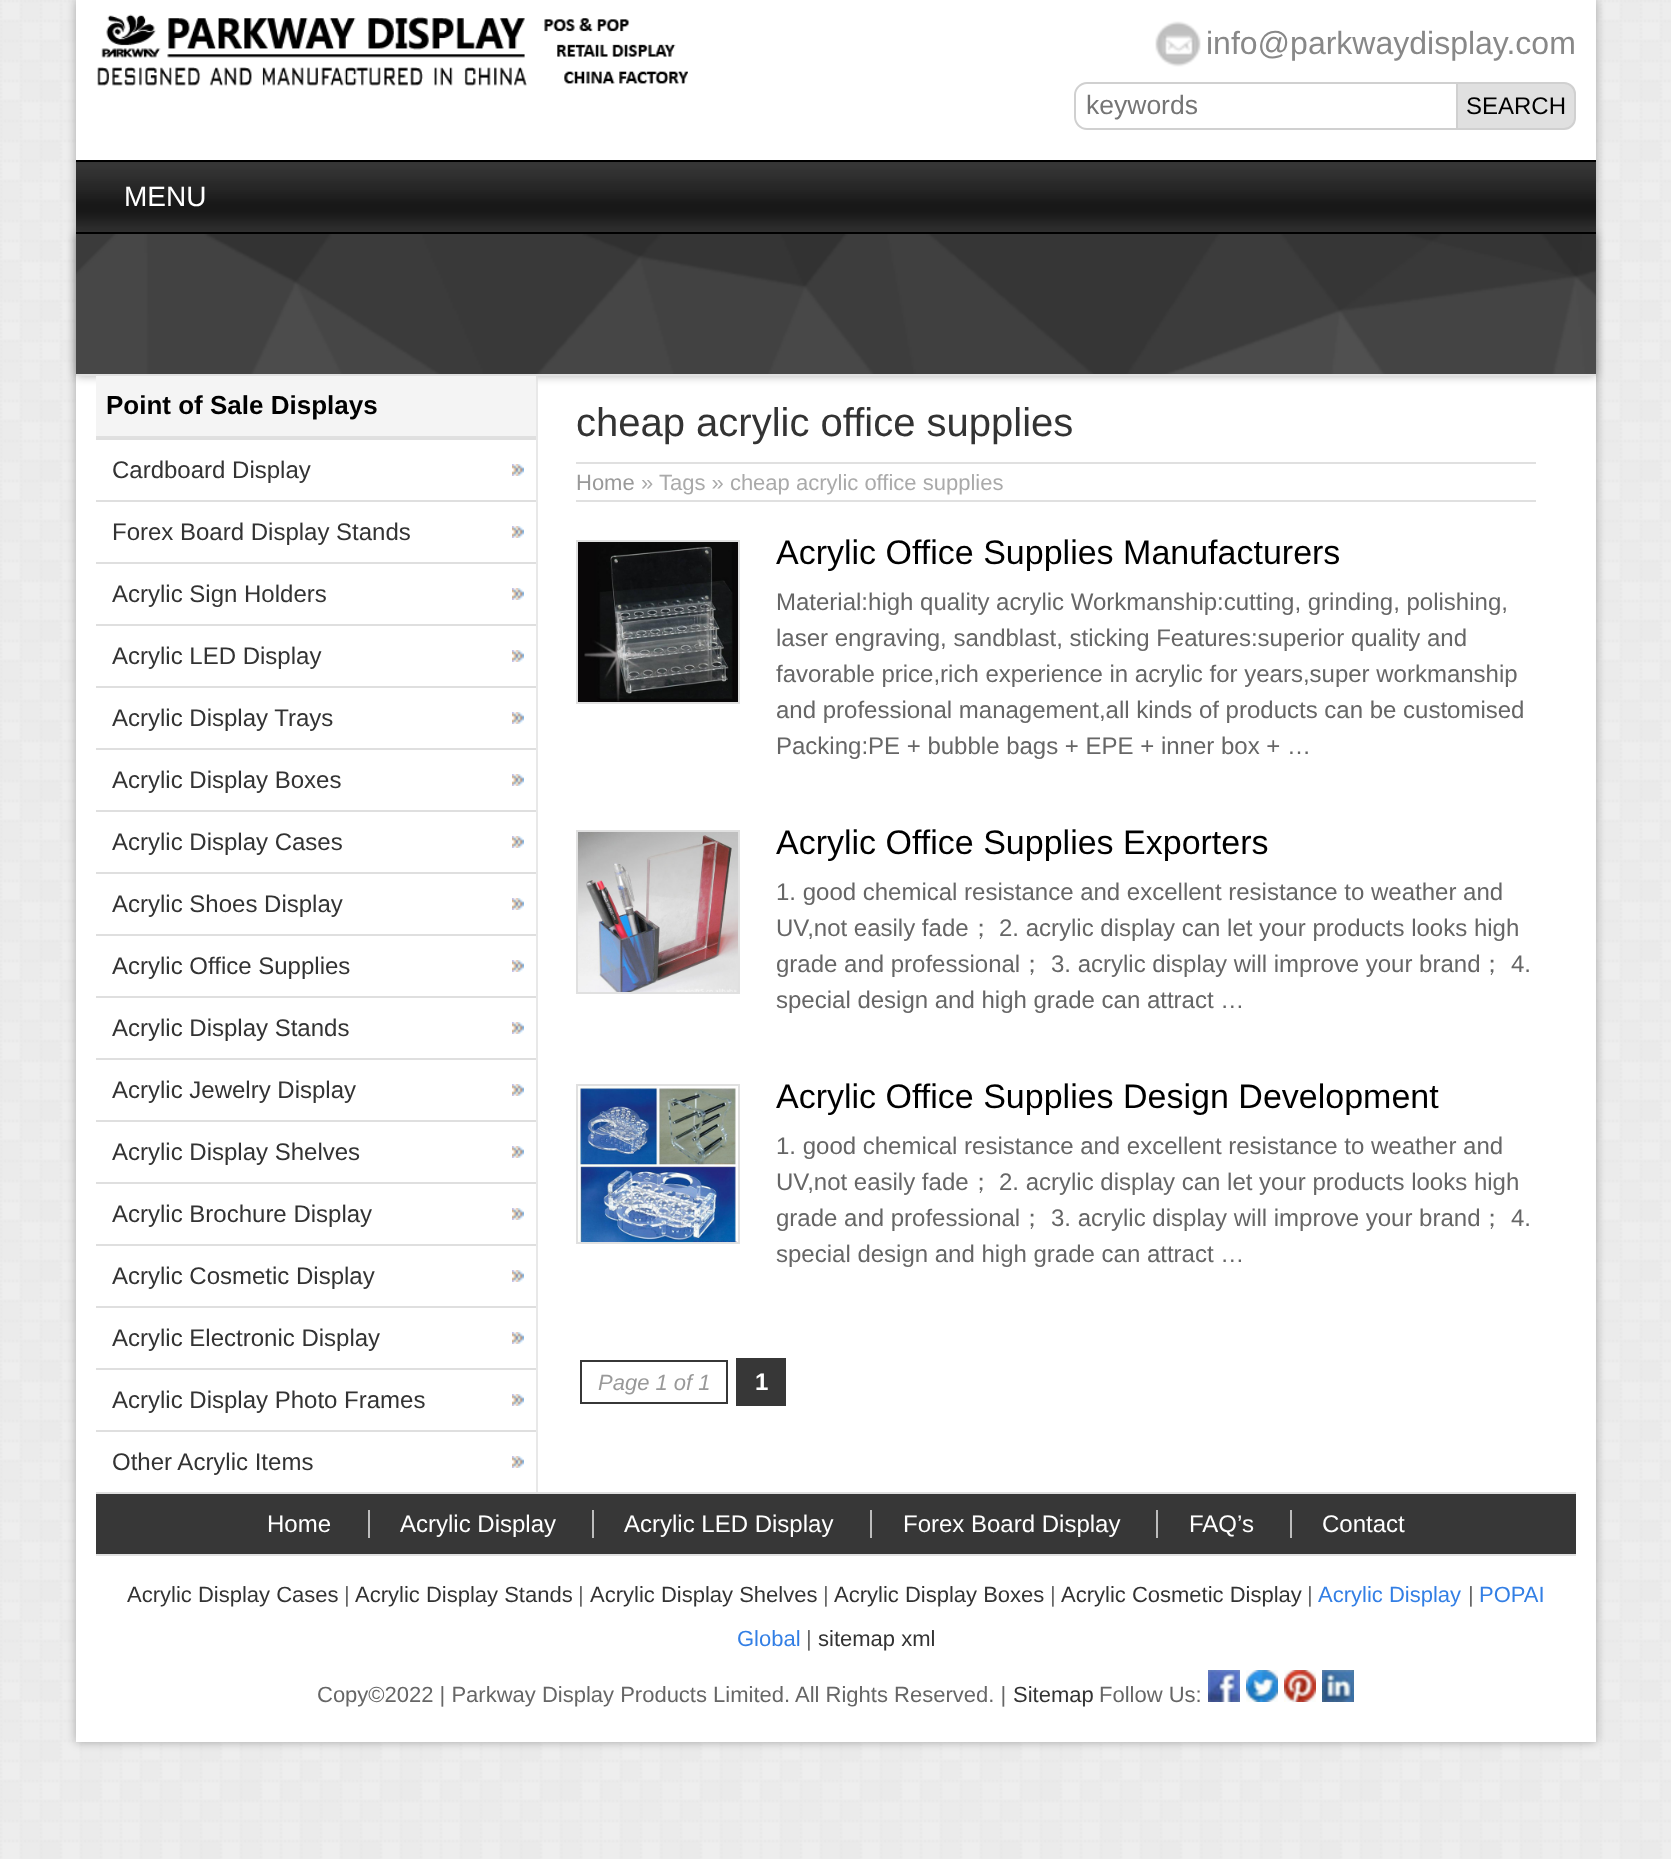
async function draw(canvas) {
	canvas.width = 1671;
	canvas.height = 1859;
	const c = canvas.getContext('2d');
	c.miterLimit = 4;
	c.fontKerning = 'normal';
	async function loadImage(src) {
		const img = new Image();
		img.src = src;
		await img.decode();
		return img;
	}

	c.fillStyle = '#fff';
	c.fillRect(0, 0, 1671, 1859);
	c.drawImage(await loadImage('img1.png'), 0, 0, 1671, 1859);
	c.fillStyle = '#0000004d';
	c.filter = 'blur(5px)';
	c.beginPath();
	c.rect(76, 0, 1520, 1742);
	c.fill();
	c.filter = 'none';
	c.fillStyle = '#fff';
	c.fillRect(76, 0, 1520, 1742);
	c.drawImage(await loadImage('img2.png'), 97, 14, 591, 72);
	c.drawImage(await loadImage('img3.png'), 1155, 21, 46, 46);
	c.font = '32px Liberation Sans';
	c.fillStyle = '#888';
	c.fillText('info@parkwaydisplay.com', 1206, 54);
	c.fillStyle = '#d0d0d0';
	c.beginPath();
	c.moveTo(1087, 82);
	c.lineTo(1456, 82);
	c.lineTo(1456, 130);
	c.lineTo(1087, 130);
	c.bezierCurveTo(1080, 130, 1074, 124, 1074, 117);
	c.lineTo(1074, 95);
	c.bezierCurveTo(1074, 88, 1080, 82, 1087, 82);
	c.closePath();
	c.moveTo(1087, 84);
	c.lineTo(1456, 84);
	c.lineTo(1456, 128);
	c.lineTo(1087, 128);
	c.bezierCurveTo(1081, 128, 1076, 123, 1076, 117);
	c.lineTo(1076, 95);
	c.bezierCurveTo(1076, 89, 1081, 84, 1087, 84);
	c.closePath();
	c.fill('evenodd');
	c.font = '26.5px Liberation Sans';
	c.fillStyle = '#757575';
	c.fillText('keywords', 1086, 114);
	c.fillStyle = '#e0e0e0';
	c.beginPath();
	c.roundRect(1457, 83, 118, 46, [0, 11, 11, 0]);
	c.fill();
	c.strokeStyle = '#d0d0d0';
	c.lineWidth = 2;
	c.stroke();
	c.font = '24px Liberation Sans';
	c.fillStyle = '#000';
	c.fillText('SEARCH', 1466, 114);
	c.drawImage(await loadImage('img4.png'), 76, 162, 1520, 70);
	c.fillRect(76, 160, 1520, 2);
	c.fillRect(76, 232, 1520, 2);
	c.font = '28px Liberation Sans';
	c.fillStyle = '#fff';
	c.fillText('MENU', 124, 206);
	c.fillStyle = '#0000004d';
	c.filter = 'blur(5px)';
	c.beginPath();
	c.rect(76, 234, 1520, 142);
	c.fill();
	c.filter = 'none';
	c.drawImage(await loadImage('img5.png'), 76, 234, 1520, 140);
	for (const [x, y, w, h, color] of [
		[76, 374, 1520, 2, '#e0e0e0'],
		[536, 376, 2, 1116, '#e0e0e0bf'],
		[96, 376, 440, 60, '#f4f4f4'],
		[96, 436, 440, 2, '#e0e0e0'],
	]) {
		c.fillStyle = color;
		c.fillRect(x, y, w, h);
	}
	c.font = 'bold 26px Liberation Sans';
	c.fillStyle = '#000';
	c.fillText('Point of Sale Displays', 106, 414);
	c.fillStyle = '#dfdfdf';
	c.fillRect(96, 438, 440, 2);
	c.drawImage(await loadImage('img6.png'), 512, 464, 12, 12);
	c.font = '24px Liberation Sans';
	c.fillStyle = '#333';
	c.fillText('Cardboard Display', 112, 478);
	c.fillStyle = '#dfdfdf';
	c.fillRect(96, 500, 440, 2);
	c.drawImage(await loadImage('img6.png'), 512, 526, 12, 12);
	c.fillStyle = '#333';
	c.fillText('Forex Board Display Stands', 112, 540);
	c.fillStyle = '#dfdfdf';
	c.fillRect(96, 562, 440, 2);
	c.drawImage(await loadImage('img6.png'), 512, 588, 12, 12);
	c.fillStyle = '#333';
	c.fillText('Acrylic Sign Holders', 112, 602);
	c.fillStyle = '#dfdfdf';
	c.fillRect(96, 624, 440, 2);
	c.drawImage(await loadImage('img6.png'), 512, 650, 12, 12);
	c.fillStyle = '#333';
	c.fillText('Acrylic LED Display', 112, 664);
	c.fillStyle = '#dfdfdf';
	c.fillRect(96, 686, 440, 2);
	c.drawImage(await loadImage('img6.png'), 512, 712, 12, 12);
	c.fillStyle = '#333';
	c.fillText('Acrylic Display Trays', 112, 726);
	c.fillStyle = '#dfdfdf';
	c.fillRect(96, 748, 440, 2);
	c.drawImage(await loadImage('img6.png'), 512, 774, 12, 12);
	c.fillStyle = '#333';
	c.fillText('Acrylic Display Boxes', 112, 788);
	c.fillStyle = '#dfdfdf';
	c.fillRect(96, 810, 440, 2);
	c.drawImage(await loadImage('img6.png'), 512, 836, 12, 12);
	c.fillStyle = '#333';
	c.fillText('Acrylic Display Cases', 112, 850);
	c.fillStyle = '#dfdfdf';
	c.fillRect(96, 872, 440, 2);
	c.drawImage(await loadImage('img6.png'), 512, 898, 12, 12);
	c.fillStyle = '#333';
	c.fillText('Acrylic Shoes Display', 112, 912);
	c.fillStyle = '#dfdfdf';
	c.fillRect(96, 934, 440, 2);
	c.drawImage(await loadImage('img6.png'), 512, 960, 12, 12);
	c.fillStyle = '#333';
	c.fillText('Acrylic Office Supplies', 112, 974);
	c.fillStyle = '#dfdfdf';
	c.fillRect(96, 996, 440, 2);
	c.drawImage(await loadImage('img6.png'), 512, 1022, 12, 12);
	c.fillStyle = '#333';
	c.fillText('Acrylic Display Stands', 112, 1036);
	c.fillStyle = '#dfdfdf';
	c.fillRect(96, 1058, 440, 2);
	c.drawImage(await loadImage('img6.png'), 512, 1084, 12, 12);
	c.fillStyle = '#333';
	c.fillText('Acrylic Jewelry Display', 112, 1098);
	c.fillStyle = '#dfdfdf';
	c.fillRect(96, 1120, 440, 2);
	c.drawImage(await loadImage('img6.png'), 512, 1146, 12, 12);
	c.fillStyle = '#333';
	c.fillText('Acrylic Display Shelves', 112, 1160);
	c.fillStyle = '#dfdfdf';
	c.fillRect(96, 1182, 440, 2);
	c.drawImage(await loadImage('img6.png'), 512, 1208, 12, 12);
	c.fillStyle = '#333';
	c.fillText('Acrylic Brochure Display', 112, 1222);
	c.fillStyle = '#dfdfdf';
	c.fillRect(96, 1244, 440, 2);
	c.drawImage(await loadImage('img6.png'), 512, 1270, 12, 12);
	c.fillStyle = '#333';
	c.fillText('Acrylic Cosmetic Display', 112, 1284);
	c.fillStyle = '#dfdfdf';
	c.fillRect(96, 1306, 440, 2);
	c.drawImage(await loadImage('img6.png'), 512, 1332, 12, 12);
	c.fillStyle = '#333';
	c.fillText('Acrylic Electronic Display', 112, 1346);
	c.fillStyle = '#dfdfdf';
	c.fillRect(96, 1368, 440, 2);
	c.drawImage(await loadImage('img6.png'), 512, 1394, 12, 12);
	c.fillStyle = '#333';
	c.fillText('Acrylic Display Photo Frames', 112, 1408);
	c.fillStyle = '#dfdfdf';
	c.fillRect(96, 1430, 440, 2);
	c.drawImage(await loadImage('img6.png'), 512, 1456, 12, 12);
	c.fillStyle = '#333';
	c.fillText('Other Acrylic Items', 112, 1470);
	c.fillStyle = '#e0e0e0';
	c.fillRect(576, 462, 960, 2);
	c.font = '40px Liberation Sans';
	c.fillStyle = '#333';
	c.fillText('cheap acrylic office supplies', 576, 436);
	c.fillStyle = '#e0e0e0';
	c.fillRect(576, 500, 960, 2);
	c.font = '22px Liberation Sans';
	c.fillStyle = '#999';
	c.fillText('Home', 576, 490);
	c.fillStyle = '#aaa';
	c.fillText('» Tags » cheap acrylic office supplies', 641, 490);
	c.strokeStyle = '#e0e0e0';
	c.strokeRect(577, 541, 162, 162);
	c.drawImage(await loadImage('img7.png'), 578, 542, 160, 160);
	c.font = '34px Liberation Sans';
	c.fillStyle = '#000';
	c.fillText('Acrylic Office Supplies Manufacturers', 776, 564);
	c.font = '24px Liberation Sans';
	c.fillStyle = '#666';
	for (const [text, x, y] of [
		['Material:high quality acrylic Workmanship:cutting, grinding, polishing,', 776, 610],
		['laser engraving, sandblast, sticking Features:superior quality and', 776, 646],
		['favorable price,rich experience in acrylic for years,super workmanship', 776, 682],
		['and professional management,all kinds of products can be customised', 776, 718],
		['Packing:PE + bubble bags + EPE + inner box + …', 776, 754],
	]) {
		c.fillText(text, x, y);
	}
	c.strokeRect(577, 831, 162, 162);
	c.drawImage(await loadImage('img8.png'), 578, 832, 160, 160);
	c.font = '34px Liberation Sans';
	c.fillStyle = '#000';
	c.fillText('Acrylic Office Supplies Exporters', 776, 854);
	c.font = '24px Liberation Sans';
	c.fillStyle = '#666';
	c.fillText('1. good chemical resistance and excellent resistance to weather and', 776, 900);
	c.fillText('UV,not easily fade', 776, 936);
	c.font = '500 24px WenQuanYi Zen Hei';
	c.fillText('；', 969, 936);
	c.font = '24px Liberation Sans';
	c.fillText('2. acrylic display can let your products looks high', 999, 936);
	c.fillText('grade and professional', 776, 972);
	c.font = '500 24px WenQuanYi Zen Hei';
	c.fillText('；', 1020, 972);
	c.font = '24px Liberation Sans';
	c.fillText('3. acrylic display will improve your brand', 1051, 972);
	c.font = '500 24px WenQuanYi Zen Hei';
	c.fillText('；', 1480, 972);
	c.font = '24px Liberation Sans';
	c.fillText('4.', 1511, 972);
	c.fillText('special design and high grade can attract …', 776, 1008);
	c.strokeRect(577, 1085, 162, 158);
	c.drawImage(await loadImage('img9.png'), 578, 1086, 160, 156);
	c.font = '34px Liberation Sans';
	c.fillStyle = '#000';
	c.fillText('Acrylic Office Supplies Design Development', 776, 1108);
	c.font = '24px Liberation Sans';
	c.fillStyle = '#666';
	c.fillText('1. good chemical resistance and excellent resistance to weather and', 776, 1154);
	c.fillText('UV,not easily fade', 776, 1190);
	c.font = '500 24px WenQuanYi Zen Hei';
	c.fillText('；', 969, 1190);
	c.font = '24px Liberation Sans';
	c.fillText('2. acrylic display can let your products looks high', 999, 1190);
	c.fillText('grade and professional', 776, 1226);
	c.font = '500 24px WenQuanYi Zen Hei';
	c.fillText('；', 1020, 1226);
	c.font = '24px Liberation Sans';
	c.fillText('3. acrylic display will improve your brand', 1051, 1226);
	c.font = '500 24px WenQuanYi Zen Hei';
	c.fillText('；', 1480, 1226);
	c.font = '24px Liberation Sans';
	c.fillText('4.', 1511, 1226);
	c.fillText('special design and high grade can attract …', 776, 1262);
	c.strokeStyle = '#373737';
	c.strokeRect(581, 1361, 146, 42);
	c.font = 'italic 22px Liberation Sans';
	c.fillStyle = '#999';
	c.fillText('Page 1 of 1', 598, 1390);
	c.fillStyle = '#373737';
	c.fillRect(736, 1358, 50, 48);
	c.font = 'bold 24px Liberation Sans';
	c.fillStyle = '#fff';
	c.fillText('1', 755, 1390);
	for (const [x, y, w, h, color] of [
		[96, 1494, 1480, 60, '#373737'],
		[96, 1492, 1480, 2, '#e0e0e0'],
		[96, 1554, 1480, 2, '#e0e0e0'],
	]) {
		c.fillStyle = color;
		c.fillRect(x, y, w, h);
	}
	c.font = '24px Liberation Sans';
	c.fillStyle = '#fff';
	c.fillText('Home', 267, 1532);
	c.fillText('Acrylic Display', 400, 1532);
	c.fillStyle = '#bcbcbc';
	c.fillRect(368, 1510, 2, 28);
	c.fillStyle = '#fff';
	c.fillText('Acrylic LED Display', 624, 1532);
	c.fillStyle = '#bcbcbc';
	c.fillRect(592, 1510, 2, 28);
	c.fillStyle = '#fff';
	c.fillText('Forex Board Display', 903, 1532);
	c.fillStyle = '#bcbcbc';
	c.fillRect(870, 1510, 2, 28);
	c.fillStyle = '#fff';
	c.fillText('FAQ’s', 1189, 1532);
	c.fillStyle = '#bcbcbc';
	c.fillRect(1156, 1510, 2, 28);
	c.fillStyle = '#fff';
	c.fillText('Contact', 1322, 1532);
	c.fillStyle = '#bcbcbc';
	c.fillRect(1290, 1510, 2, 28);
	c.font = '22px Liberation Sans';
	c.fillStyle = '#333';
	c.fillText('Acrylic Display Cases', 127, 1602);
	c.fillStyle = '#666';
	c.fillText('|', 344, 1602);
	c.fillStyle = '#333';
	c.fillText('Acrylic Display Stands', 355, 1602);
	c.fillStyle = '#666';
	c.fillText('|', 578, 1602);
	c.fillStyle = '#333';
	c.fillText('Acrylic Display Shelves', 590, 1602);
	c.fillStyle = '#666';
	c.fillText('|', 823, 1602);
	c.fillStyle = '#333';
	c.fillText('Acrylic Display Boxes', 834, 1602);
	c.fillStyle = '#666';
	c.fillText('|', 1050, 1602);
	c.fillStyle = '#333';
	c.fillText('Acrylic Cosmetic Display', 1061, 1602);
	c.fillStyle = '#666';
	c.fillText('|', 1307, 1602);
	c.fillStyle = '#337fe5';
	c.fillText('Acrylic Display', 1318, 1602);
	c.fillStyle = '#666';
	c.fillText('|', 1468, 1602);
	c.fillStyle = '#337fe5';
	c.fillText('POPAI', 1479, 1602);
	c.fillText('Global', 737, 1646);
	c.fillStyle = '#666';
	c.fillText('|', 806, 1646);
	c.fillStyle = '#333';
	c.fillText('sitemap xml', 818, 1646);
	c.fillStyle = '#666';
	c.fillText('Copy©2022 | Parkway Display Products Limited. All Rights Reserved. |', 317, 1702);
	c.fillStyle = '#333';
	c.fillText('Sitemap', 1013, 1702);
	c.fillStyle = '#666';
	c.fillText('Follow Us:', 1099, 1702);
	c.drawImage(await loadImage('img10.png'), 1208, 1670, 32, 32);
	c.drawImage(await loadImage('img11.png'), 1246, 1670, 32, 32);
	c.drawImage(await loadImage('img12.png'), 1284, 1670, 32, 32);
	c.drawImage(await loadImage('img13.png'), 1322, 1670, 32, 32);
}

draw(document.querySelector('canvas'));
